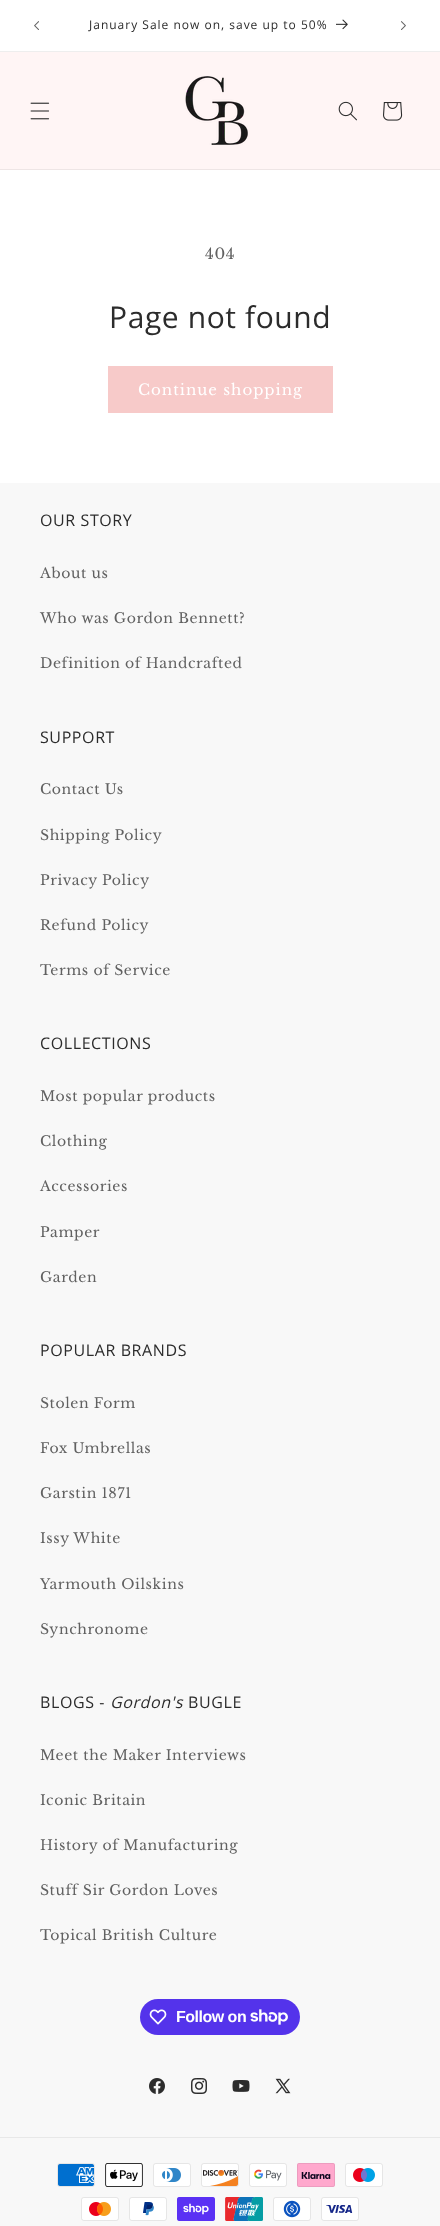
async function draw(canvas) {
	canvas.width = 440;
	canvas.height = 2226;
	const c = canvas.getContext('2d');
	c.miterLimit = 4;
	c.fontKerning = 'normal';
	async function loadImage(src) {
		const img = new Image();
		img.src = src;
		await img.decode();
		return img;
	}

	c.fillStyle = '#fff';
	c.fillRect(0, 0, 440, 2226);
	c.fillStyle = '#eee';
	c.fillRect(0, 51, 440, 1);
	c.drawImage(await loadImage('img1.png'), 34, 21, 5, 9);
	c.letterSpacing = '1px';
	c.font = '12px Open Sans';
	c.fillStyle = '#2c2c2c';
	c.fillText('January Sale now on, save up to 50%', 89, 29);
	c.drawImage(await loadImage('img2.png'), 336, 19, 12, 11);
	c.drawImage(await loadImage('img3.png'), 401, 21, 5, 9);
	c.fillStyle = '#fff5f5';
	c.fillRect(0, 52, 440, 117);
	c.fillStyle = '#eee5e5';
	c.fillRect(0, 169, 440, 1);
	c.drawImage(await loadImage('img4.png'), 30, 102, 20, 18);
	c.drawImage(await loadImage('img5.png'), 185, 76, 63, 69);
	c.drawImage(await loadImage('img6.png'), 338, 101, 19, 20);
	c.drawImage(await loadImage('img7.png'), 383, 102, 20, 19);
	c.letterSpacing = '0.6px';
	c.font = '15px Libre Baskerville';
	c.fillStyle = '#616161';
	c.fillText('404', 205, 259);
	c.font = '30px Open Sans';
	c.fillStyle = '#2c2c2c';
	c.fillText('Page not found', 109, 328);
	c.fillStyle = '#f7cac9';
	c.fillRect(108, 366, 225, 47);
	c.letterSpacing = '1px';
	c.font = '15px Libre Baskerville';
	c.fillStyle = '#fff';
	c.fillText('Continue shopping', 138, 395);
	c.fillStyle = '#f8f8f8';
	c.fillRect(0, 483, 440, 1743);
	c.letterSpacing = '0.6px';
	c.font = '16px Open Sans';
	c.fillStyle = '#2c2c2c';
	c.fillText('OUR STORY', 40, 526);
	c.font = '14px Libre Baskerville';
	c.fillStyle = '#616161';
	for (const [text, x, y] of [
		['About us', 40, 578],
		['Who was Gordon Bennett?', 40, 623],
		['Definition of Handcrafted', 40, 668],
	]) {
		c.fillText(text, x, y);
	}
	c.font = '16px Open Sans';
	c.fillStyle = '#2c2c2c';
	c.fillText('SUPPORT', 40, 743);
	c.font = '14px Libre Baskerville';
	c.fillStyle = '#616161';
	for (const [text, x, y] of [
		['Contact Us', 40, 794],
		['Shipping Policy', 40, 840],
		['Privacy Policy', 40, 885],
		['Refund Policy', 40, 930],
		['Terms of Service', 40, 975],
	]) {
		c.fillText(text, x, y);
	}
	c.font = '16px Open Sans';
	c.fillStyle = '#2c2c2c';
	c.fillText('COLLECTIONS', 40, 1049);
	c.font = '14px Libre Baskerville';
	c.fillStyle = '#616161';
	for (const [text, x, y] of [
		['Most popular products', 40, 1101],
		['Clothing', 40, 1146],
		['Accessories', 40, 1191],
		['Pamper', 40, 1237],
		['Garden', 40, 1282],
	]) {
		c.fillText(text, x, y);
	}
	c.font = '16px Open Sans';
	c.fillStyle = '#2c2c2c';
	c.fillText('POPULAR BRANDS', 40, 1356);
	c.font = '14px Libre Baskerville';
	c.fillStyle = '#616161';
	for (const [text, x, y] of [
		['Stolen Form', 40, 1408],
		['Fox Umbrellas', 40, 1453],
		['Garstin 1871', 40, 1498],
		['Issy White', 40, 1543],
		['Yarmouth Oilskins', 40, 1589],
		['Synchronome', 40, 1634],
	]) {
		c.fillText(text, x, y);
	}
	c.font = '16px Open Sans';
	c.fillStyle = '#2c2c2c';
	c.fillText('BLOGS -', 40, 1708);
	c.font = 'italic 16px Open Sans';
	c.fillText('Gordon\'s', 110, 1708);
	c.font = '16px Open Sans';
	c.fillText('BUGLE', 188, 1708);
	c.font = '14px Libre Baskerville';
	c.fillStyle = '#616161';
	for (const [text, x, y] of [
		['Meet the Maker Interviews', 40, 1760],
		['Iconic Britain', 40, 1805],
		['History of Manufacturing', 40, 1850],
		['Stuff Sir Gordon Loves', 40, 1895],
		['Topical British Culture', 40, 1940],
	]) {
		c.fillText(text, x, y);
	}
	c.fillStyle = '#5433eb';
	c.beginPath();
	c.roundRect(140, 1999, 160, 36, 18);
	c.fill();
	c.drawImage(await loadImage('img8.png'), 149, 2009, 18, 16);
	c.letterSpacing = '-0.5px';
	c.font = 'bold 16px Liberation Sans';
	c.fillStyle = '#fff';
	c.fillText('Follow on', 176, 2022);
	c.drawImage(await loadImage('img9.png'), 250, 2009, 38, 16);
	c.drawImage(await loadImage('img10.png'), 149, 2078, 16, 16);
	c.drawImage(await loadImage('img11.png'), 191, 2078, 16, 16);
	c.drawImage(await loadImage('img12.png'), 232, 2080, 18, 12);
	c.drawImage(await loadImage('img13.png'), 275, 2078, 16, 16);
	c.fillStyle = '#e8e8e8';
	c.fillRect(0, 2137, 440, 1);
	c.drawImage(await loadImage('img14.png'), 57, 2163, 38, 24);
	c.drawImage(await loadImage('img15.png'), 105, 2163, 38, 24);
	c.drawImage(await loadImage('img16.png'), 153, 2163, 38, 24);
	c.drawImage(await loadImage('img17.png'), 201, 2163, 38, 24);
	c.drawImage(await loadImage('img18.png'), 249, 2163, 38, 24);
	c.drawImage(await loadImage('img19.png'), 297, 2163, 38, 24);
	c.drawImage(await loadImage('img20.png'), 345, 2163, 38, 24);
	c.drawImage(await loadImage('img21.png'), 81, 2197, 38, 24);
	c.drawImage(await loadImage('img22.png'), 129, 2197, 38, 24);
	c.drawImage(await loadImage('img23.png'), 177, 2197, 38, 24);
	c.drawImage(await loadImage('img24.png'), 225, 2197, 38, 24);
	c.drawImage(await loadImage('img25.png'), 273, 2197, 38, 24);
	c.drawImage(await loadImage('img26.png'), 321, 2197, 38, 24);
}

draw(document.querySelector('canvas'));
